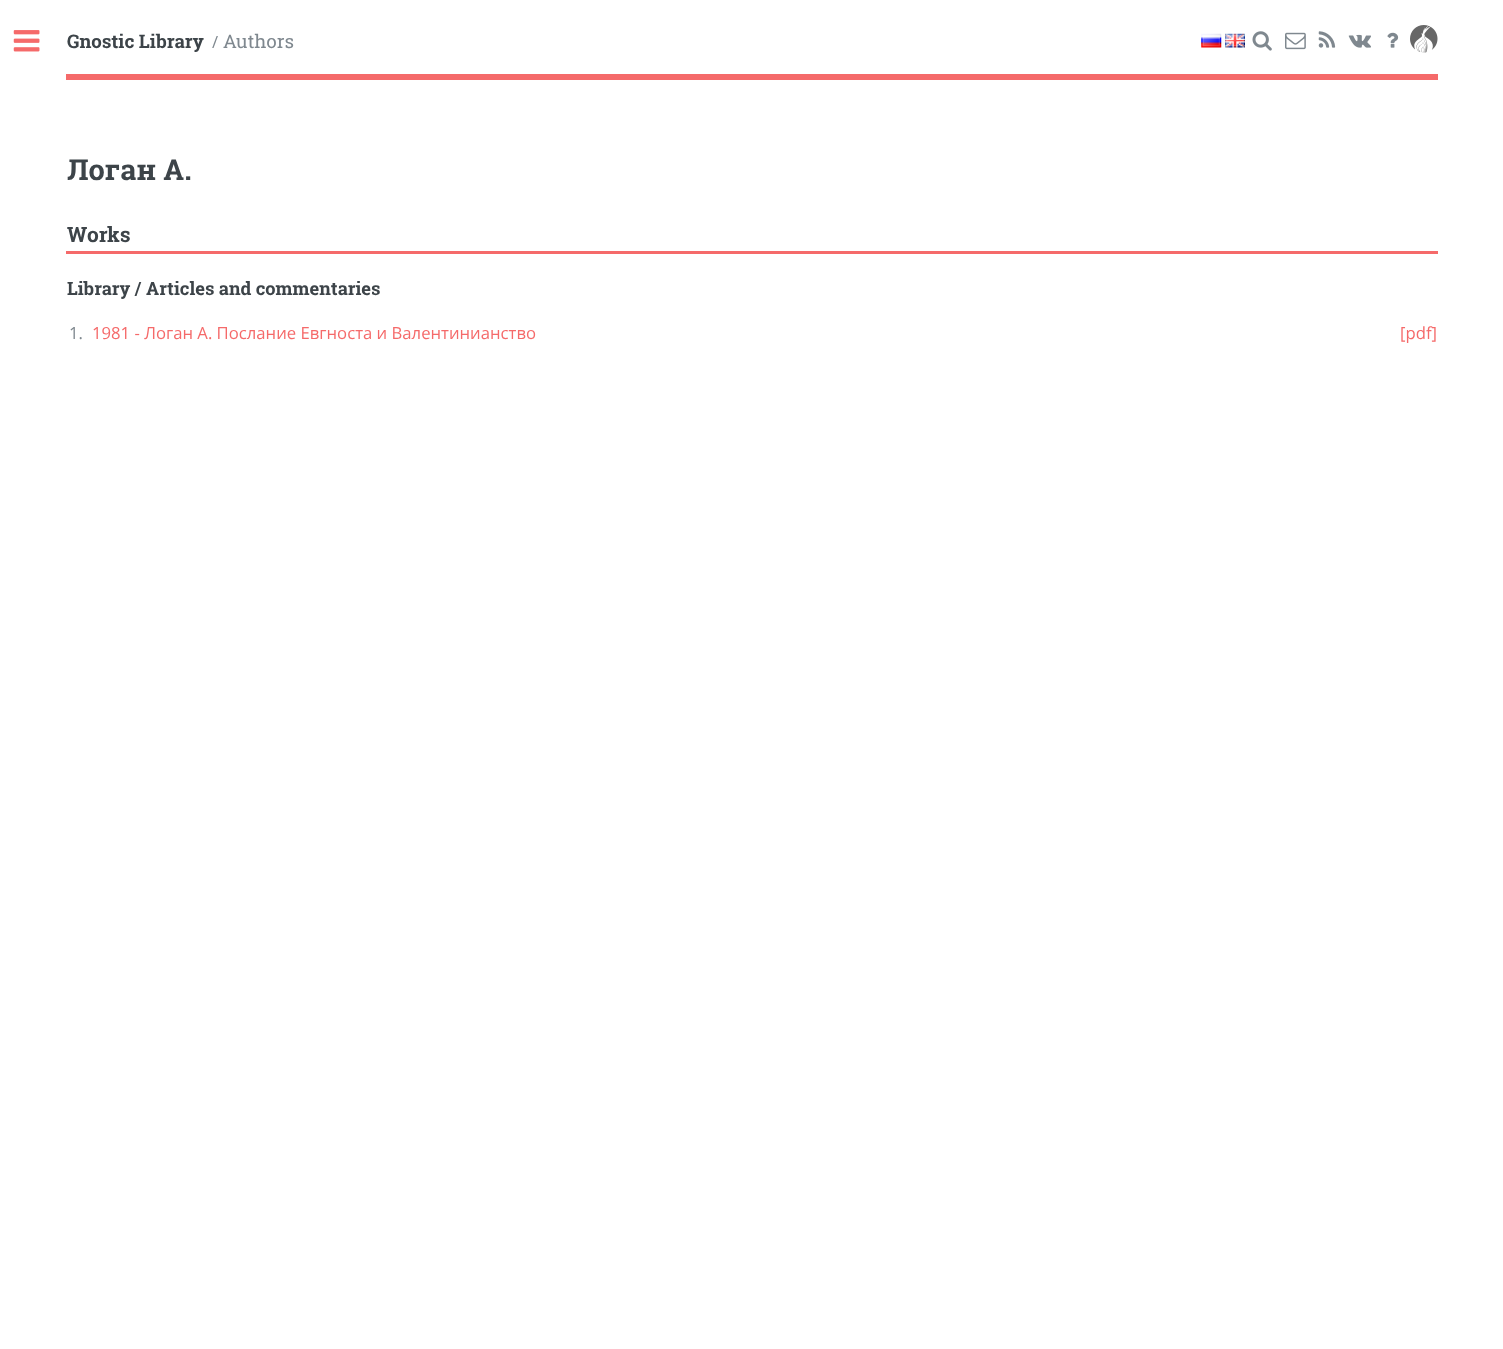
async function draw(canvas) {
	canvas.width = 1503;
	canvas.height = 1349;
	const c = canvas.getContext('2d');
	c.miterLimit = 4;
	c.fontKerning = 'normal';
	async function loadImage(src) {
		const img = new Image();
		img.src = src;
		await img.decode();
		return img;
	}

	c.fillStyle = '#fff';
	c.fillRect(0, 0, 1503, 1349);
	c.drawImage(await loadImage('img1.png'), 13, 30, 27, 22);
	c.fillStyle = '#f56a6a';
	c.fillRect(66, 74, 1372, 6);
	c.font = 'bold 18.75px Roboto Slab';
	c.fillStyle = '#3d4449';
	c.fillText('Gnostic Library', 67, 48);
	c.font = '16.7px Open Sans';
	c.fillStyle = '#7f888f';
	c.fillText('/', 212, 48);
	c.font = '18.75px Roboto Slab';
	c.fillText('Authors', 223, 48);
	c.drawImage(await loadImage('img2.png'), 1201, 33, 21, 15);
	c.drawImage(await loadImage('img3.png'), 1225, 33, 20, 15);
	c.drawImage(await loadImage('img4.png'), 1252, 31, 20, 20);
	c.drawImage(await loadImage('img5.png'), 1285, 32, 21, 18);
	c.drawImage(await loadImage('img6.png'), 1318, 31, 18, 17);
	c.drawImage(await loadImage('img7.png'), 1348, 34, 23, 14);
	c.drawImage(await loadImage('img8.png'), 1387, 32, 12, 16);
	c.drawImage(await loadImage('img9.png'), 1410, 25, 28, 28);
	c.font = 'bold 29px Roboto Slab';
	c.fillStyle = '#3d4449';
	c.fillText('Логан А.', 67, 180);
	c.fillStyle = '#f56a6a';
	c.fillRect(66, 251, 1372, 3);
	c.font = 'bold 21px Roboto Slab';
	c.fillStyle = '#3d4449';
	c.fillText('Works', 67, 242);
	c.font = 'bold 18.3px Roboto Slab';
	c.fillText('Library / Articles and commentaries', 67, 295);
	c.font = '16.7px Open Sans';
	c.fillStyle = '#7f888f';
	c.fillText('1.', 69, 339);
	c.fillStyle = '#f56a6a';
	c.fillText('1981 - Логан А. Послание Евгноста и Валентинианство', 92, 339);
	c.fillText('[pdf]', 1400, 339);
}

draw(document.querySelector('canvas'));
